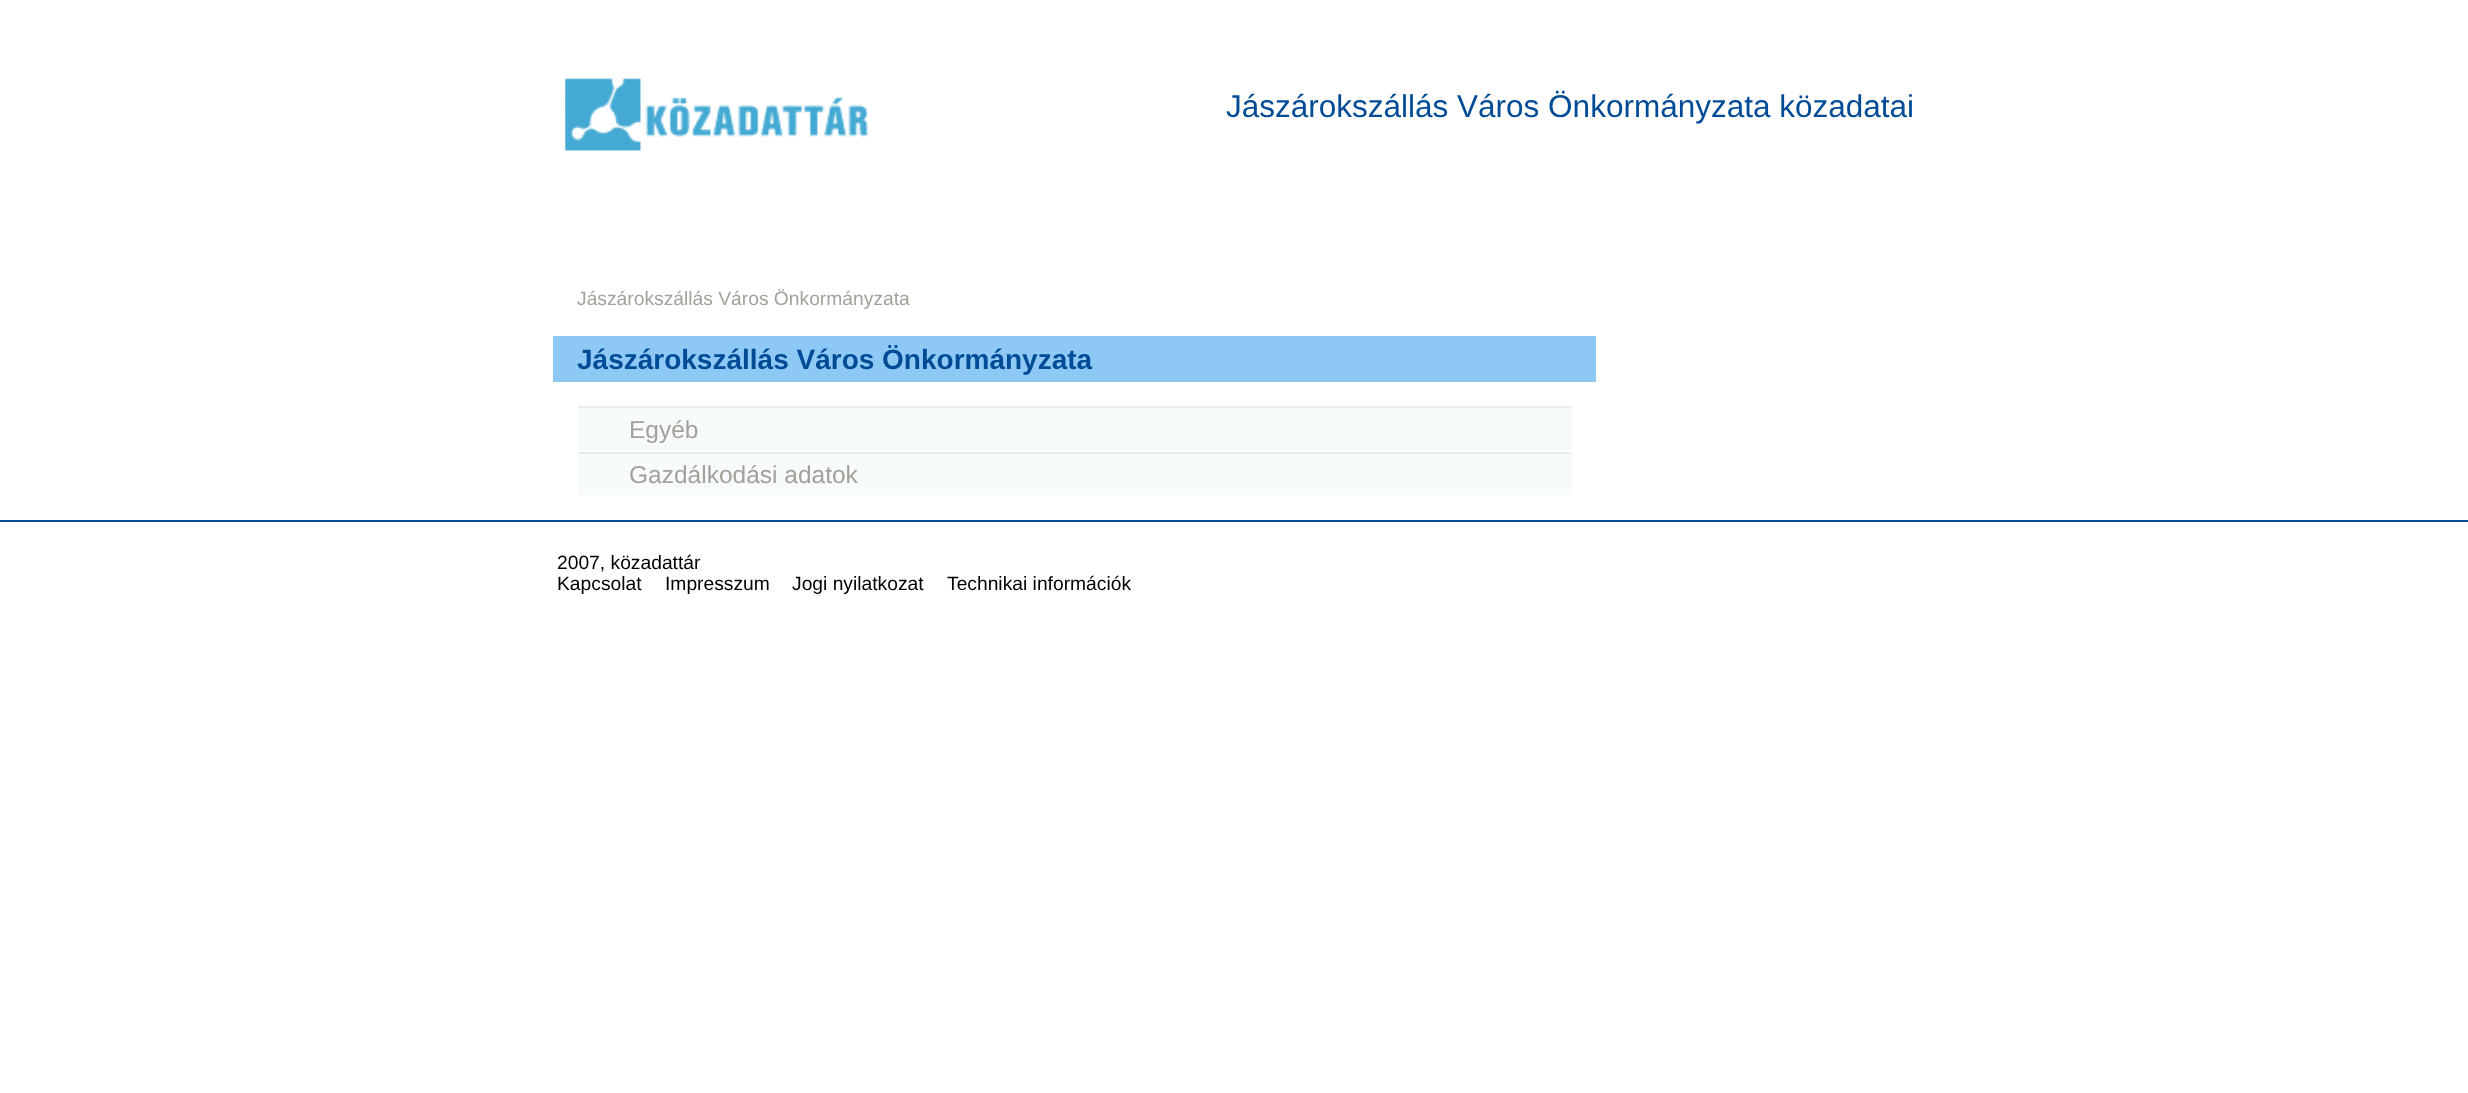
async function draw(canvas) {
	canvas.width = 2468;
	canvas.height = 1093;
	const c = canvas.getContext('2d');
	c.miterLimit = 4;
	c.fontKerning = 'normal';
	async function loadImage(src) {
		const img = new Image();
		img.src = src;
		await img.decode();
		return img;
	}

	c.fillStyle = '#fff';
	c.fillRect(0, 0, 2468, 1093);
	c.drawImage(await loadImage('img1.png'), 565, 77, 304, 74);
	c.font = '31.5px Liberation Sans';
	c.fillStyle = '#004b96';
	c.fillText('Jászárokszállás Város Önkormányzata közadatai', 1226, 117);
	c.font = '19.25px Liberation Sans';
	c.fillStyle = '#a2a19a';
	c.fillText('Jászárokszállás Város Önkormányzata', 577, 305);
	c.fillStyle = '#8ec9f6';
	c.fillRect(553, 336, 1043, 46);
	c.font = 'bold 28px Liberation Sans';
	c.fillStyle = '#004b96';
	c.fillText('Jászárokszállás Város Önkormányzata', 577, 369);
	c.fillStyle = '#f8fbfb';
	c.fillRect(578, 408, 994, 42);
	c.fillStyle = '#e8eff2';
	c.fillRect(578, 406, 994, 2);
	c.font = '24.5px Liberation Sans';
	c.fillStyle = '#a2a19a';
	c.fillText('Egyéb', 629, 438);
	c.fillStyle = '#f8fbfb';
	c.fillRect(578, 454, 994, 41);
	c.fillStyle = '#e8eff2';
	c.fillRect(578, 452, 994, 2);
	c.fillStyle = '#a2a19a';
	c.fillText('Gazdálkodási adatok', 629, 483);
	c.fillStyle = '#004b96';
	c.fillRect(0, 520, 2468, 2);
	c.font = '19.25px Liberation Sans';
	c.fillStyle = '#000';
	for (const [text, x, y] of [
		['2007, közadattár', 557, 569],
		['Kapcsolat', 557, 590],
		['Impresszum', 665, 590],
		['Jogi nyilatkozat', 792, 590],
		['Technikai információk', 947, 590],
	]) {
		c.fillText(text, x, y);
	}
}

draw(document.querySelector('canvas'));
